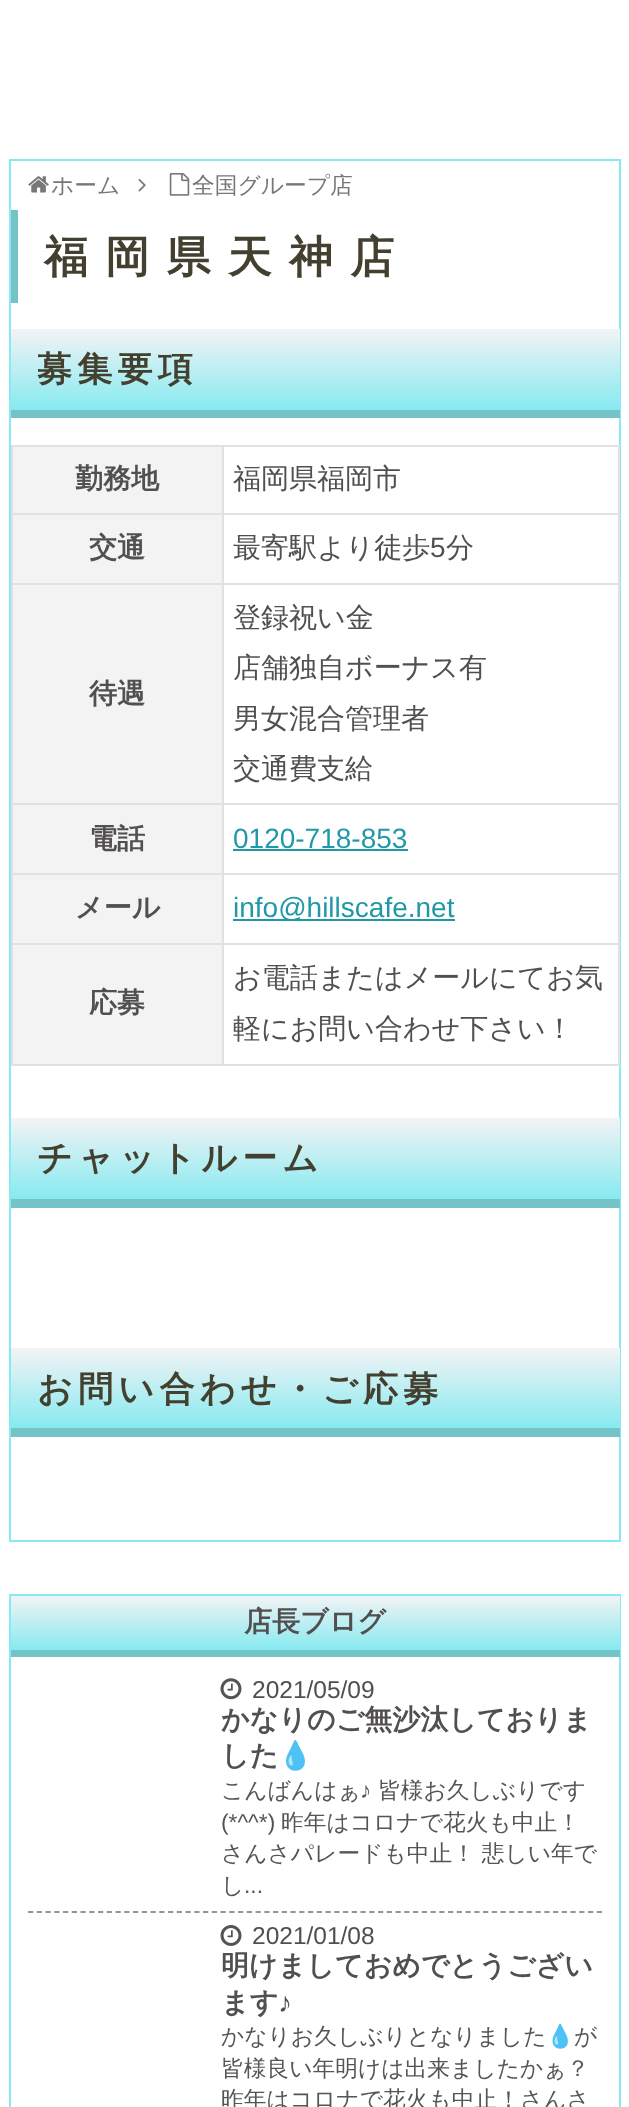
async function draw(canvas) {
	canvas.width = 629;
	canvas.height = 2107;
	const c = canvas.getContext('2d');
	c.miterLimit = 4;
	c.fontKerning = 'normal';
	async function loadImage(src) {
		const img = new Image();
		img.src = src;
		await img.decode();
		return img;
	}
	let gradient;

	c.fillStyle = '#fff';
	c.fillRect(0, 0, 629, 2107);
	c.strokeStyle = '#86eaf0';
	c.lineWidth = 2;
	c.strokeRect(10, 160, 610, 1381);
	c.drawImage(await loadImage('img1.png'), 28, 176, 21, 17);
	c.font = '500 22.75px WenQuanYi Zen Hei';
	c.fillStyle = '#777';
	c.fillText('ホーム', 51, 193);
	c.drawImage(await loadImage('img2.png'), 138, 178, 8, 14);
	c.drawImage(await loadImage('img3.png'), 169, 173, 21, 23);
	c.fillText('全国グループ店', 192, 193);
	c.fillStyle = '#73c3c7';
	c.fillRect(11, 210, 7, 93);
	c.letterSpacing = '17.5px';
	c.font = 'bold 43.75px WenQuanYi Zen Hei';
	c.fillStyle = '#444030';
	c.fillText('福岡県天神店', 44, 272);
	gradient = c.createLinearGradient(315, 329, 315, 410);
	gradient.addColorStop(0, '#f3f3f5');
	gradient.addColorStop(1, '#86eaf0');
	c.fillStyle = gradient;
	c.fillRect(11, 329, 609, 81);
	c.fillStyle = '#73c3c7';
	c.fillRect(11, 410, 609, 8);
	c.letterSpacing = '5.25px';
	c.font = 'bold 35px WenQuanYi Zen Hei';
	c.fillStyle = '#444030';
	c.fillText('募集要項', 37, 381);
	for (const [x, y, w, h, color] of [
		[11, 445, 609, 2, '#e2e1e1'],
		[618, 445, 2, 621, '#e2e1e1'],
		[11, 1064, 609, 2, '#e2e1e1'],
		[11, 445, 2, 621, '#e2e1e1'],
		[13, 447, 209, 66, '#f3f3f3'],
	]) {
		c.fillStyle = color;
		c.fillRect(x, y, w, h);
	}
	c.letterSpacing = '0px';
	c.font = 'bold 28px WenQuanYi Zen Hei';
	c.fillStyle = '#524f4f';
	c.fillText('勤務地', 75, 488);
	for (const [x, y, w, h, color] of [
		[222, 513, 398, 2, '#e2e1e1'],
		[222, 583, 398, 2, '#e2e1e1'],
		[222, 803, 398, 2, '#e2e1e1'],
		[222, 873, 398, 2, '#e2e1e1'],
		[222, 943, 398, 2, '#e2e1e1'],
		[222, 943, 2, 123, '#e2e1e1'],
		[11, 943, 213, 2, '#e2e1e1'],
		[222, 873, 2, 72, '#e2e1e1'],
		[11, 873, 213, 2, '#e2e1e1'],
		[222, 803, 2, 72, '#e2e1e1'],
		[11, 803, 213, 2, '#e2e1e1'],
		[222, 583, 2, 222, '#e2e1e1'],
		[11, 583, 213, 2, '#e2e1e1'],
		[222, 513, 2, 72, '#e2e1e1'],
		[11, 513, 213, 2, '#e2e1e1'],
		[222, 445, 2, 70, '#e2e1e1'],
	]) {
		c.fillStyle = color;
		c.fillRect(x, y, w, h);
	}
	c.font = '500 28px WenQuanYi Zen Hei';
	c.fillStyle = '#524f4f';
	c.fillText('福岡県福岡市', 233, 488);
	c.fillStyle = '#f3f3f3';
	c.fillRect(13, 515, 209, 68);
	c.font = 'bold 28px WenQuanYi Zen Hei';
	c.fillStyle = '#524f4f';
	c.fillText('交通', 89, 557);
	c.font = '500 28px WenQuanYi Zen Hei';
	c.fillText('最寄駅より徒歩', 233, 557);
	c.font = '28px Liberation Sans';
	c.fillText('5', 430, 557);
	c.font = '500 28px WenQuanYi Zen Hei';
	c.fillText('分', 446, 557);
	c.fillStyle = '#f3f3f3';
	c.fillRect(13, 585, 209, 218);
	c.font = 'bold 28px WenQuanYi Zen Hei';
	c.fillStyle = '#524f4f';
	c.fillText('待遇', 89, 703);
	c.font = '500 28px WenQuanYi Zen Hei';
	for (const [text, x, y] of [
		['登録祝い金', 233, 627],
		['店舗独自ボーナス有', 233, 677],
		['男女混合管理者', 233, 728],
		['交通費支給', 233, 778],
	]) {
		c.fillText(text, x, y);
	}
	c.fillStyle = '#f3f3f3';
	c.fillRect(13, 805, 209, 68);
	c.font = 'bold 28px WenQuanYi Zen Hei';
	c.fillStyle = '#524f4f';
	c.fillText('電話', 89, 848);
	c.font = '28px Liberation Sans';
	c.fillStyle = '#2098a8';
	c.fillText('0120-718-853', 233, 848);
	c.fillRect(233, 849, 175, 2);
	c.fillStyle = '#f3f3f3';
	c.fillRect(13, 875, 209, 68);
	c.font = 'bold 28px WenQuanYi Zen Hei';
	c.fillStyle = '#524f4f';
	c.fillText('メール', 75, 917);
	c.fillStyle = '#2098a8';
	c.fillRect(233, 919, 222, 2);
	c.font = '28px Liberation Sans';
	c.fillText('info@hillscafe.net', 233, 917);
	c.fillStyle = '#f3f3f3';
	c.fillRect(13, 945, 209, 119);
	c.font = 'bold 28px WenQuanYi Zen Hei';
	c.fillStyle = '#524f4f';
	c.fillText('応募', 89, 1012);
	c.font = '500 28px WenQuanYi Zen Hei';
	c.fillText('お電話またはメールにてお気', 233, 987);
	c.fillText('軽にお問い合わせ下さい！', 233, 1038);
	gradient = c.createLinearGradient(315, 1118, 315, 1199);
	gradient.addColorStop(0, '#f3f3f5');
	gradient.addColorStop(1, '#86eaf0');
	c.fillStyle = gradient;
	c.fillRect(11, 1118, 609, 81);
	c.fillStyle = '#73c3c7';
	c.fillRect(11, 1199, 609, 9);
	c.letterSpacing = '5.25px';
	c.font = 'bold 35px WenQuanYi Zen Hei';
	c.fillStyle = '#444030';
	c.fillText('チャットルーム', 37, 1170);
	gradient = c.createLinearGradient(315, 1348, 315, 1428);
	gradient.addColorStop(0, '#f3f3f5');
	gradient.addColorStop(1, '#86eaf0');
	c.fillStyle = gradient;
	c.fillRect(11, 1348, 609, 80);
	c.fillStyle = '#73c3c7';
	c.fillRect(11, 1428, 609, 9);
	c.fillStyle = '#444030';
	c.fillText('お問い合わせ・ご応募', 37, 1401);
	c.strokeRect(10, 1595, 610, 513);
	gradient = c.createLinearGradient(315, 1596, 315, 1650);
	gradient.addColorStop(0, '#f3f3f5');
	gradient.addColorStop(1, '#86eaf0');
	c.fillStyle = gradient;
	c.fillRect(11, 1596, 609, 54);
	c.fillStyle = '#73c3c7';
	c.fillRect(11, 1650, 609, 7);
	c.letterSpacing = '0px';
	c.font = 'bold 28px WenQuanYi Zen Hei';
	c.fillStyle = '#524f4f';
	c.fillText('店長ブログ', 244, 1631);
	c.drawImage(await loadImage('img4.png'), 220, 1678, 22, 22);
	c.font = '24.5px Liberation Sans';
	c.fillText('2021/05/09', 252, 1698);
	c.font = 'bold 28px WenQuanYi Zen Hei';
	c.fillText('かなりのご無沙汰しておりま', 221, 1729);
	c.fillText('した', 221, 1765);
	c.font = 'bold 28px Noto Color Emoji';
	c.fillText('💧', 278, 1765);
	c.font = '500 22.75px WenQuanYi Zen Hei';
	c.fillStyle = '#555';
	c.fillText('こんばんはぁ', 221, 1798);
	c.font = '22.75px Liberation Sans';
	c.fillText('♪', 360, 1798);
	c.font = '500 22.75px WenQuanYi Zen Hei';
	c.fillText('皆様お久しぶりです', 378, 1798);
	c.font = '22.75px Liberation Sans';
	c.fillText('(*^^*)', 221, 1830);
	c.font = '500 22.75px WenQuanYi Zen Hei';
	for (const [text, x, y] of [
		['昨年はコロナで花火も中止！', 281, 1830],
		['さんさパレードも中止！ 悲しい年で', 221, 1861],
		['し', 221, 1893],
	]) {
		c.fillText(text, x, y);
	}
	c.font = '22.75px Liberation Sans';
	c.fillText('...', 244, 1893);
	c.beginPath();
	c.moveTo(28, 1912);
	c.lineTo(602, 1912);
	c.strokeStyle = '#949494';
	c.lineWidth = 1.8;
	c.setLineDash([5.25, 3.5]);
	c.stroke();
	c.drawImage(await loadImage('img5.png'), 220, 1925, 22, 21);
	c.font = '24.5px Liberation Sans';
	c.fillStyle = '#524f4f';
	c.fillText('2021/01/08', 252, 1944);
	c.font = 'bold 28px WenQuanYi Zen Hei';
	c.fillText('明けましておめでとうござい', 221, 1975);
	c.fillText('ます', 221, 2012);
	c.font = 'bold 28px Liberation Sans';
	c.fillText('♪', 278, 2012);
	c.font = '500 22.75px WenQuanYi Zen Hei';
	c.fillStyle = '#555';
	c.fillText('かなりお久しぶりとなりました', 221, 2044);
	c.font = '22.75px Noto Color Emoji';
	c.fillText('💧', 546, 2044);
	c.font = '500 22.75px WenQuanYi Zen Hei';
	for (const [text, x, y] of [
		['が', 574, 2044],
		['皆様良い年明けは出来ましたかぁ？', 221, 2076],
		['昨年はコロナで花火も中止！さんさ', 221, 2107],
	]) {
		c.fillText(text, x, y);
	}
}

draw(document.querySelector('canvas'));
